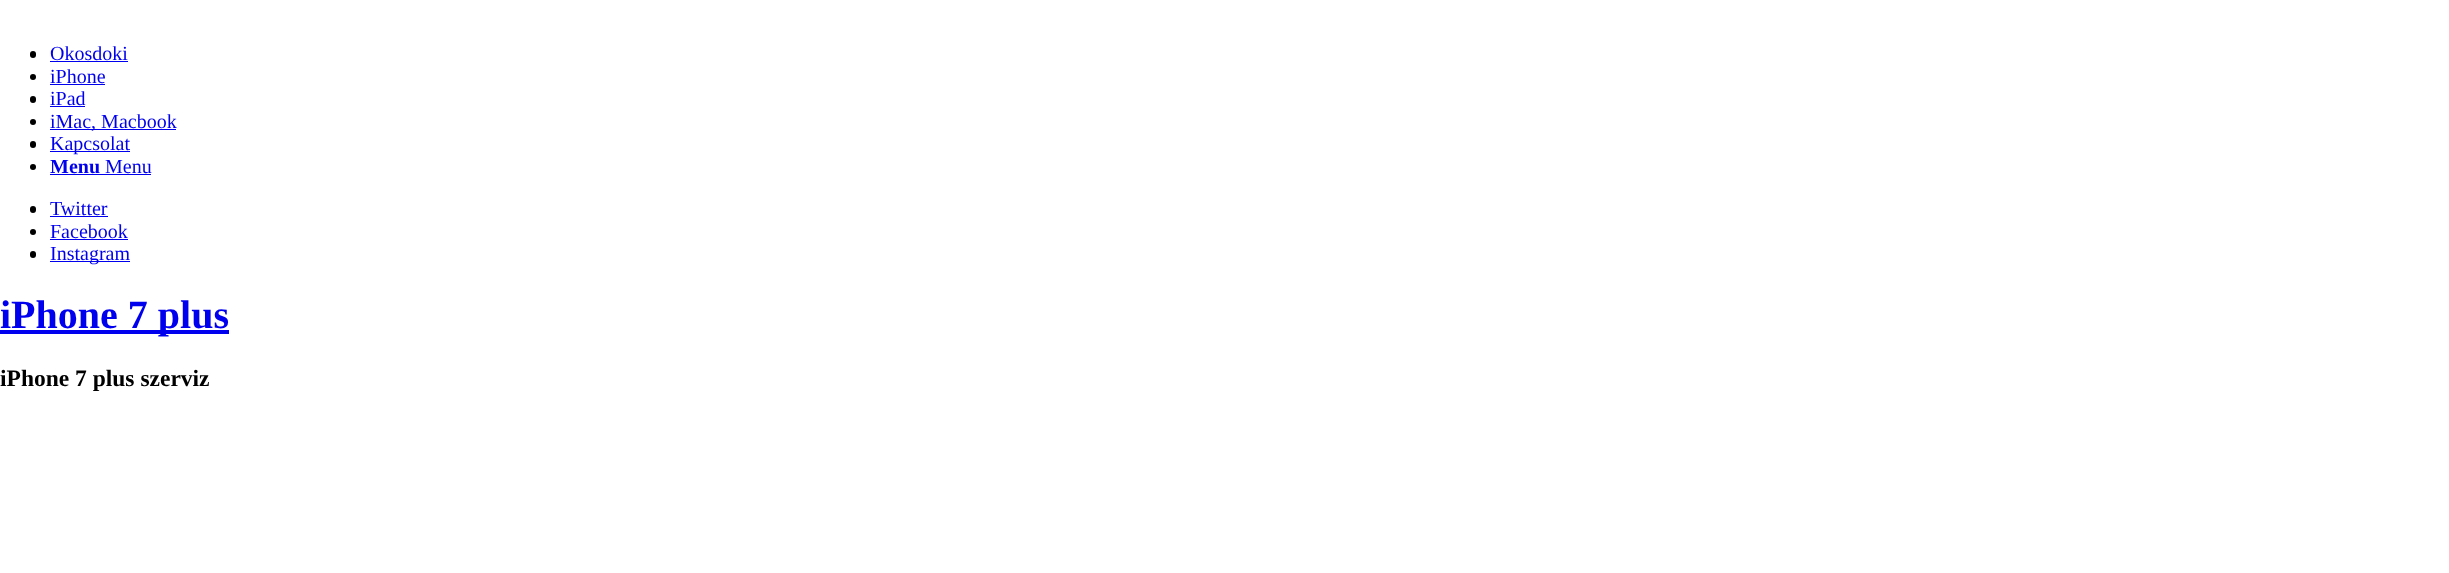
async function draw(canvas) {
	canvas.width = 2449;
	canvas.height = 573;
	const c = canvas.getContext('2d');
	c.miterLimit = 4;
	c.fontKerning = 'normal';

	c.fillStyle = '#fff';
	c.fillRect(0, 0, 2449, 573);
	c.fillStyle = '#000';
	c.beginPath();
	c.roundRect(30, 51, 6, 7, 3);
	c.fill();
	c.font = '20px Liberation Serif';
	c.fillStyle = '#00e';
	c.fillText('Okosdoki', 50, 60);
	c.fillRect(50, 61, 78, 1);
	c.fillStyle = '#000';
	c.beginPath();
	c.arc(33, 77, 3, 0, 2 * Math.PI);
	c.fill();
	c.fillStyle = '#00e';
	c.fillText('iPhone', 50, 83);
	c.fillRect(50, 84, 55, 1);
	c.fillStyle = '#000';
	c.beginPath();
	c.roundRect(30, 96, 6, 7, 3);
	c.fill();
	c.fillStyle = '#00e';
	c.fillText('iPad', 50, 105);
	c.fillRect(50, 106, 35, 1);
	c.fillStyle = '#000';
	c.beginPath();
	c.arc(33, 122, 3, 0, 2 * Math.PI);
	c.fill();
	c.fillStyle = '#00e';
	c.fillRect(50, 129, 126, 1);
	c.fillText('iMac, Macbook', 50, 128);
	c.fillStyle = '#000';
	c.beginPath();
	c.roundRect(30, 141, 6, 7, 3);
	c.fill();
	c.fillStyle = '#00e';
	c.fillRect(50, 151, 80, 1);
	c.fillText('Kapcsolat', 50, 150);
	c.fillStyle = '#000';
	c.beginPath();
	c.arc(33, 167, 3, 0, 2 * Math.PI);
	c.fill();
	c.font = 'bold 20px Liberation Serif';
	c.fillStyle = '#00e';
	c.fillText('Menu', 50, 173);
	c.fillRect(50, 174, 101, 1);
	c.font = '20px Liberation Serif';
	c.fillText('Menu', 105, 173);
	c.fillStyle = '#000';
	c.beginPath();
	c.roundRect(30, 206, 6, 7, 3);
	c.fill();
	c.fillStyle = '#00e';
	c.fillText('Twitter', 50, 215);
	c.fillRect(50, 216, 58, 1);
	c.fillStyle = '#000';
	c.beginPath();
	c.arc(33, 232, 3, 0, 2 * Math.PI);
	c.fill();
	c.fillStyle = '#00e';
	c.fillText('Facebook', 50, 238);
	c.fillRect(50, 239, 78, 1);
	c.fillStyle = '#000';
	c.beginPath();
	c.roundRect(30, 251, 6, 7, 3);
	c.fill();
	c.fillStyle = '#00e';
	c.fillRect(50, 261, 80, 1);
	c.fillText('Instagram', 50, 260);
	c.fillRect(0, 330, 229, 4);
	c.font = 'bold 40px Liberation Serif';
	c.fillText('iPhone 7 plus', 0, 328);
	c.font = 'bold 23.5px Liberation Serif';
	c.fillStyle = '#000';
	c.fillText('iPhone 7 plus szerviz', 0, 386);
}

draw(document.querySelector('canvas'));
